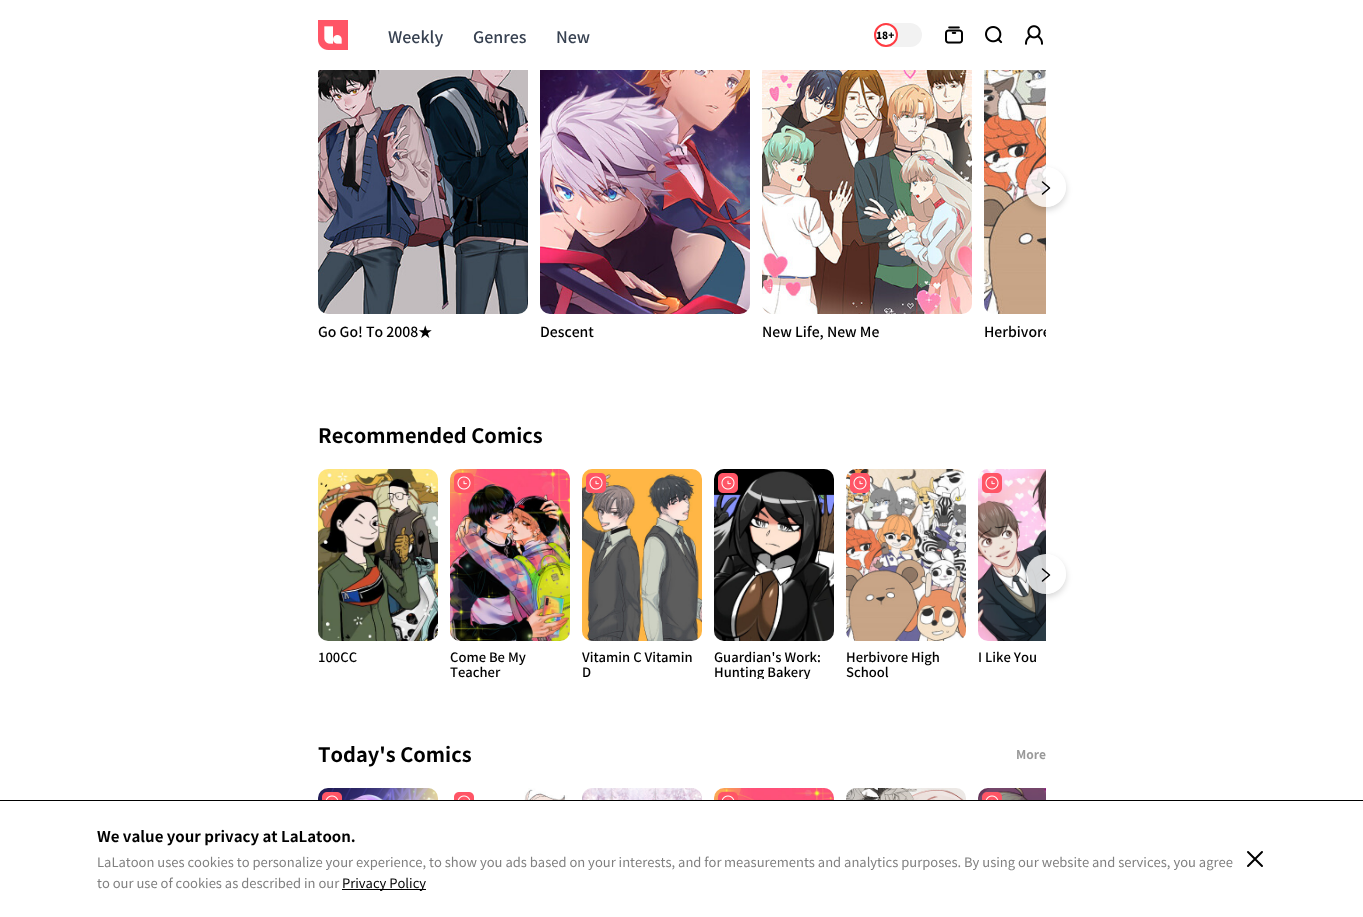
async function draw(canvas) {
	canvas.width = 1363;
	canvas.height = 917;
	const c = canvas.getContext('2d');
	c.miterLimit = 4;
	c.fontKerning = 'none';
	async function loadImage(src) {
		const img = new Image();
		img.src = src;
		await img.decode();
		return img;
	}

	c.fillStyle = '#fff';
	c.fillRect(0, 0, 1363, 917);
	c.drawImage(await loadImage('img1.png'), 318, 20, 30, 30);
	c.font = '500 16px Noto Sans SC';
	c.fillStyle = '#374151';
	for (const [text, x, y] of [
		['Weekly', 388, 43],
		['Genres', 473, 43],
		['New', 556, 43],
	]) {
		c.fillText(text, x, y);
	}
	c.fillStyle = '#f2f2f2';
	c.beginPath();
	c.roundRect(874, 23, 48, 24, 12);
	c.fill();
	c.fillStyle = '#fff';
	c.beginPath();
	c.arc(886, 35, 11, 0, 2 * Math.PI);
	c.fill();
	c.strokeStyle = '#ff3b42';
	c.lineWidth = 2;
	c.stroke();
	c.font = '900 10px Noto Sans SC';
	c.fillStyle = '#000';
	c.fillText('18+', 876, 39);
	c.drawImage(await loadImage('img2.png'), 945, 26, 18, 18);
	c.drawImage(await loadImage('img3.png'), 985, 26, 18, 18);
	c.drawImage(await loadImage('img4.png'), 1025, 25, 18, 20);
	c.drawImage(await loadImage('img8.png'), 984, 70, 62, 244);
	c.save();
	c.beginPath();
	c.moveTo(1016, 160);
	c.lineTo(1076, 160);
	c.lineTo(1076, 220);
	c.lineTo(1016, 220);
	c.closePath();
	c.moveTo(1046, 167);
	c.bezierCurveTo(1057, 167, 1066, 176, 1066, 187);
	c.bezierCurveTo(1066, 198, 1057, 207, 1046, 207);
	c.bezierCurveTo(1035, 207, 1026, 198, 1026, 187);
	c.bezierCurveTo(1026, 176, 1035, 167, 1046, 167);
	c.closePath();
	c.clip('evenodd');
	c.fillStyle = '#00000029';
	c.filter = 'blur(3px)';
	c.beginPath();
	c.roundRect(1026, 170, 40, 40, 20);
	c.fill();
	c.filter = 'none';
	c.restore();
	c.fillStyle = '#ffffffcc';
	c.beginPath();
	c.arc(1046, 187, 20, 0, 2 * Math.PI);
	c.fill();
	c.beginPath();
	c.moveTo(1042.5, 182);
	c.lineTo(1049.5, 188);
	c.lineTo(1042.5, 194);
	c.strokeStyle = '#000';
	c.lineWidth = 1.5;
	c.lineCap = 'round';
	c.lineJoin = 'round';
	c.stroke();
	c.drawImage(await loadImage('img5.png'), 318, 70, 210, 244);
	c.font = '500 14px Noto Sans SC';
	c.fillStyle = '#000';
	c.fillText('Go Go! To 2008★', 318, 337);
	c.drawImage(await loadImage('img6.png'), 540, 70, 210, 244);
	c.fillText('Descent', 540, 337);
	c.drawImage(await loadImage('img7.png'), 762, 70, 210, 244);
	c.fillText('New Life, New Me', 762, 337);
	c.save();
	c.beginPath();
	c.rect(984, 322, 62, 19);
	c.clip();
	c.fillText('Herbivore', 984, 337);
	c.restore();
	c.font = 'bold 20px Noto Sans SC';
	c.fillText('Recommended Comics', 318, 443);
	c.drawImage(await loadImage('img18.png'), 978, 469, 68, 172);
	c.save();
	c.beginPath();
	c.moveTo(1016, 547);
	c.lineTo(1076, 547);
	c.lineTo(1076, 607);
	c.lineTo(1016, 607);
	c.closePath();
	c.moveTo(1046, 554);
	c.bezierCurveTo(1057, 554, 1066, 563, 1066, 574);
	c.bezierCurveTo(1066, 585, 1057, 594, 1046, 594);
	c.bezierCurveTo(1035, 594, 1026, 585, 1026, 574);
	c.bezierCurveTo(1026, 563, 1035, 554, 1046, 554);
	c.closePath();
	c.clip('evenodd');
	c.fillStyle = '#00000029';
	c.filter = 'blur(3px)';
	c.beginPath();
	c.roundRect(1026, 557, 40, 40, 20);
	c.fill();
	c.filter = 'none';
	c.restore();
	c.fillStyle = '#ffffffcc';
	c.beginPath();
	c.arc(1046, 574, 20, 0, 2 * Math.PI);
	c.fill();
	c.beginPath();
	c.moveTo(1042.5, 569);
	c.lineTo(1049.5, 575);
	c.lineTo(1042.5, 581);
	c.stroke();
	c.drawImage(await loadImage('img9.png'), 318, 469, 120, 172);
	c.font = '500 13px Noto Sans SC';
	c.fillStyle = '#000';
	c.fillText('100CC', 318, 662);
	c.drawImage(await loadImage('img10.png'), 450, 469, 120, 172);
	c.drawImage(await loadImage('img11.png'), 454, 473, 20, 20);
	c.fillText('Come Be My', 450, 662);
	c.fillText('Teacher', 450, 677);
	c.drawImage(await loadImage('img12.png'), 582, 469, 120, 172);
	c.drawImage(await loadImage('img13.png'), 586, 473, 20, 20);
	c.fillText('Vitamin C Vitamin', 582, 662);
	c.fillText('D', 582, 677);
	c.drawImage(await loadImage('img14.png'), 714, 469, 120, 172);
	c.drawImage(await loadImage('img15.png'), 718, 473, 20, 20);
	c.fillText('Guardian\'s Work:', 714, 662);
	c.save();
	c.beginPath();
	c.rect(714, 649, 120, 30);
	c.clip();
	c.fillText('Hunting Bakery', 714, 677);
	c.restore();
	c.drawImage(await loadImage('img16.png'), 846, 469, 120, 172);
	c.drawImage(await loadImage('img17.png'), 850, 473, 20, 20);
	c.fillText('Herbivore High', 846, 662);
	c.fillText('School', 846, 677);
	c.drawImage(await loadImage('img19.png'), 982, 473, 20, 20);
	c.fillText('I Like You', 978, 662);
	c.font = 'bold 20px Noto Sans SC';
	c.fillText('Today\'s Comics', 318, 762);
	c.font = 'bold 12px Noto Sans SC';
	c.fillStyle = '#999';
	c.fillText('More', 1016, 759);
	c.drawImage(await loadImage('img20.png'), 318, 788, 120, 12);
	c.drawImage(await loadImage('img21.png'), 322, 792, 20, 8);
	c.drawImage(await loadImage('img22.png'), 450, 788, 120, 12);
	c.drawImage(await loadImage('img23.png'), 454, 792, 20, 8);
	c.drawImage(await loadImage('img24.png'), 582, 788, 120, 12);
	c.drawImage(await loadImage('img25.png'), 714, 788, 120, 12);
	c.drawImage(await loadImage('img26.png'), 718, 792, 20, 8);
	c.drawImage(await loadImage('img27.png'), 846, 788, 120, 12);
	c.drawImage(await loadImage('img28.png'), 978, 788, 68, 12);
	c.drawImage(await loadImage('img29.png'), 982, 792, 20, 8);
	c.fillStyle = '#000';
	c.fillRect(0, 800, 1363, 1);
	c.font = 'bold 15px Noto Sans SC';
	c.fillText('We value your privacy at LaLatoon.', 97, 842);
	c.font = '13px Noto Sans SC';
	c.fillStyle = '#808080';
	c.fillText('LaLatoon uses cookies to personalize your experience, to show you ads based on your interests, and for', 97, 867);
	c.fillText('measurements and analytics purposes. By using our website and services, you agree', 724, 867);
	c.fillText('to our use of cookies as described in our', 97, 888);
	c.fillStyle = '#000';
	c.fillRect(342, 889, 84, 1);
	c.fillText('Privacy Policy', 342, 888);
	c.beginPath();
	c.moveTo(1248, 852);
	c.lineTo(1262, 866);
	c.moveTo(1262, 852);
	c.lineTo(1248, 866);
	c.lineWidth = 2;
	c.lineJoin = 'miter';
	c.stroke();
}

draw(document.querySelector('canvas'));
